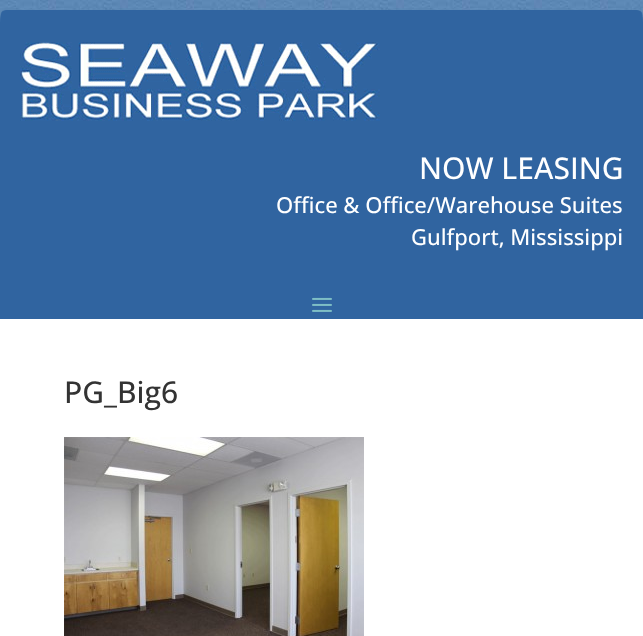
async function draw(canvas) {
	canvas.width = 643;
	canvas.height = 636;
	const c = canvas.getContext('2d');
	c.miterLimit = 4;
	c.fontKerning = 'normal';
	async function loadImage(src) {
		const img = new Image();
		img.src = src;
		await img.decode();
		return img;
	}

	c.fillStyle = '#fff';
	c.fillRect(0, 0, 643, 636);
	c.drawImage(await loadImage('img1.png'), 0, 0, 643, 23);
	c.drawImage(await loadImage('img2.png'), 0, 10, 643, 277);
	c.drawImage(await loadImage('img3.png'), 20, 42, 360, 79);
	c.font = '500 30px Open Sans';
	c.fillText('NOW LEASING', 419, 179);
	c.font = '500 22px Open Sans';
	c.fillText('Office & Office/Warehouse Suites', 276, 213);
	c.fillText('Gulfport, Mississippi', 411, 245);
	c.fillStyle = '#3064a0';
	c.fillRect(0, 287, 643, 32);
	c.drawImage(await loadImage('img4.png'), 312, 297, 20, 15);
	c.font = '500 30px Open Sans';
	c.fillStyle = '#333';
	c.fillText('PG_Big6', 64, 403);
	c.drawImage(await loadImage('img5.png'), 64, 437, 300, 199);
}

draw(document.querySelector('canvas'));
